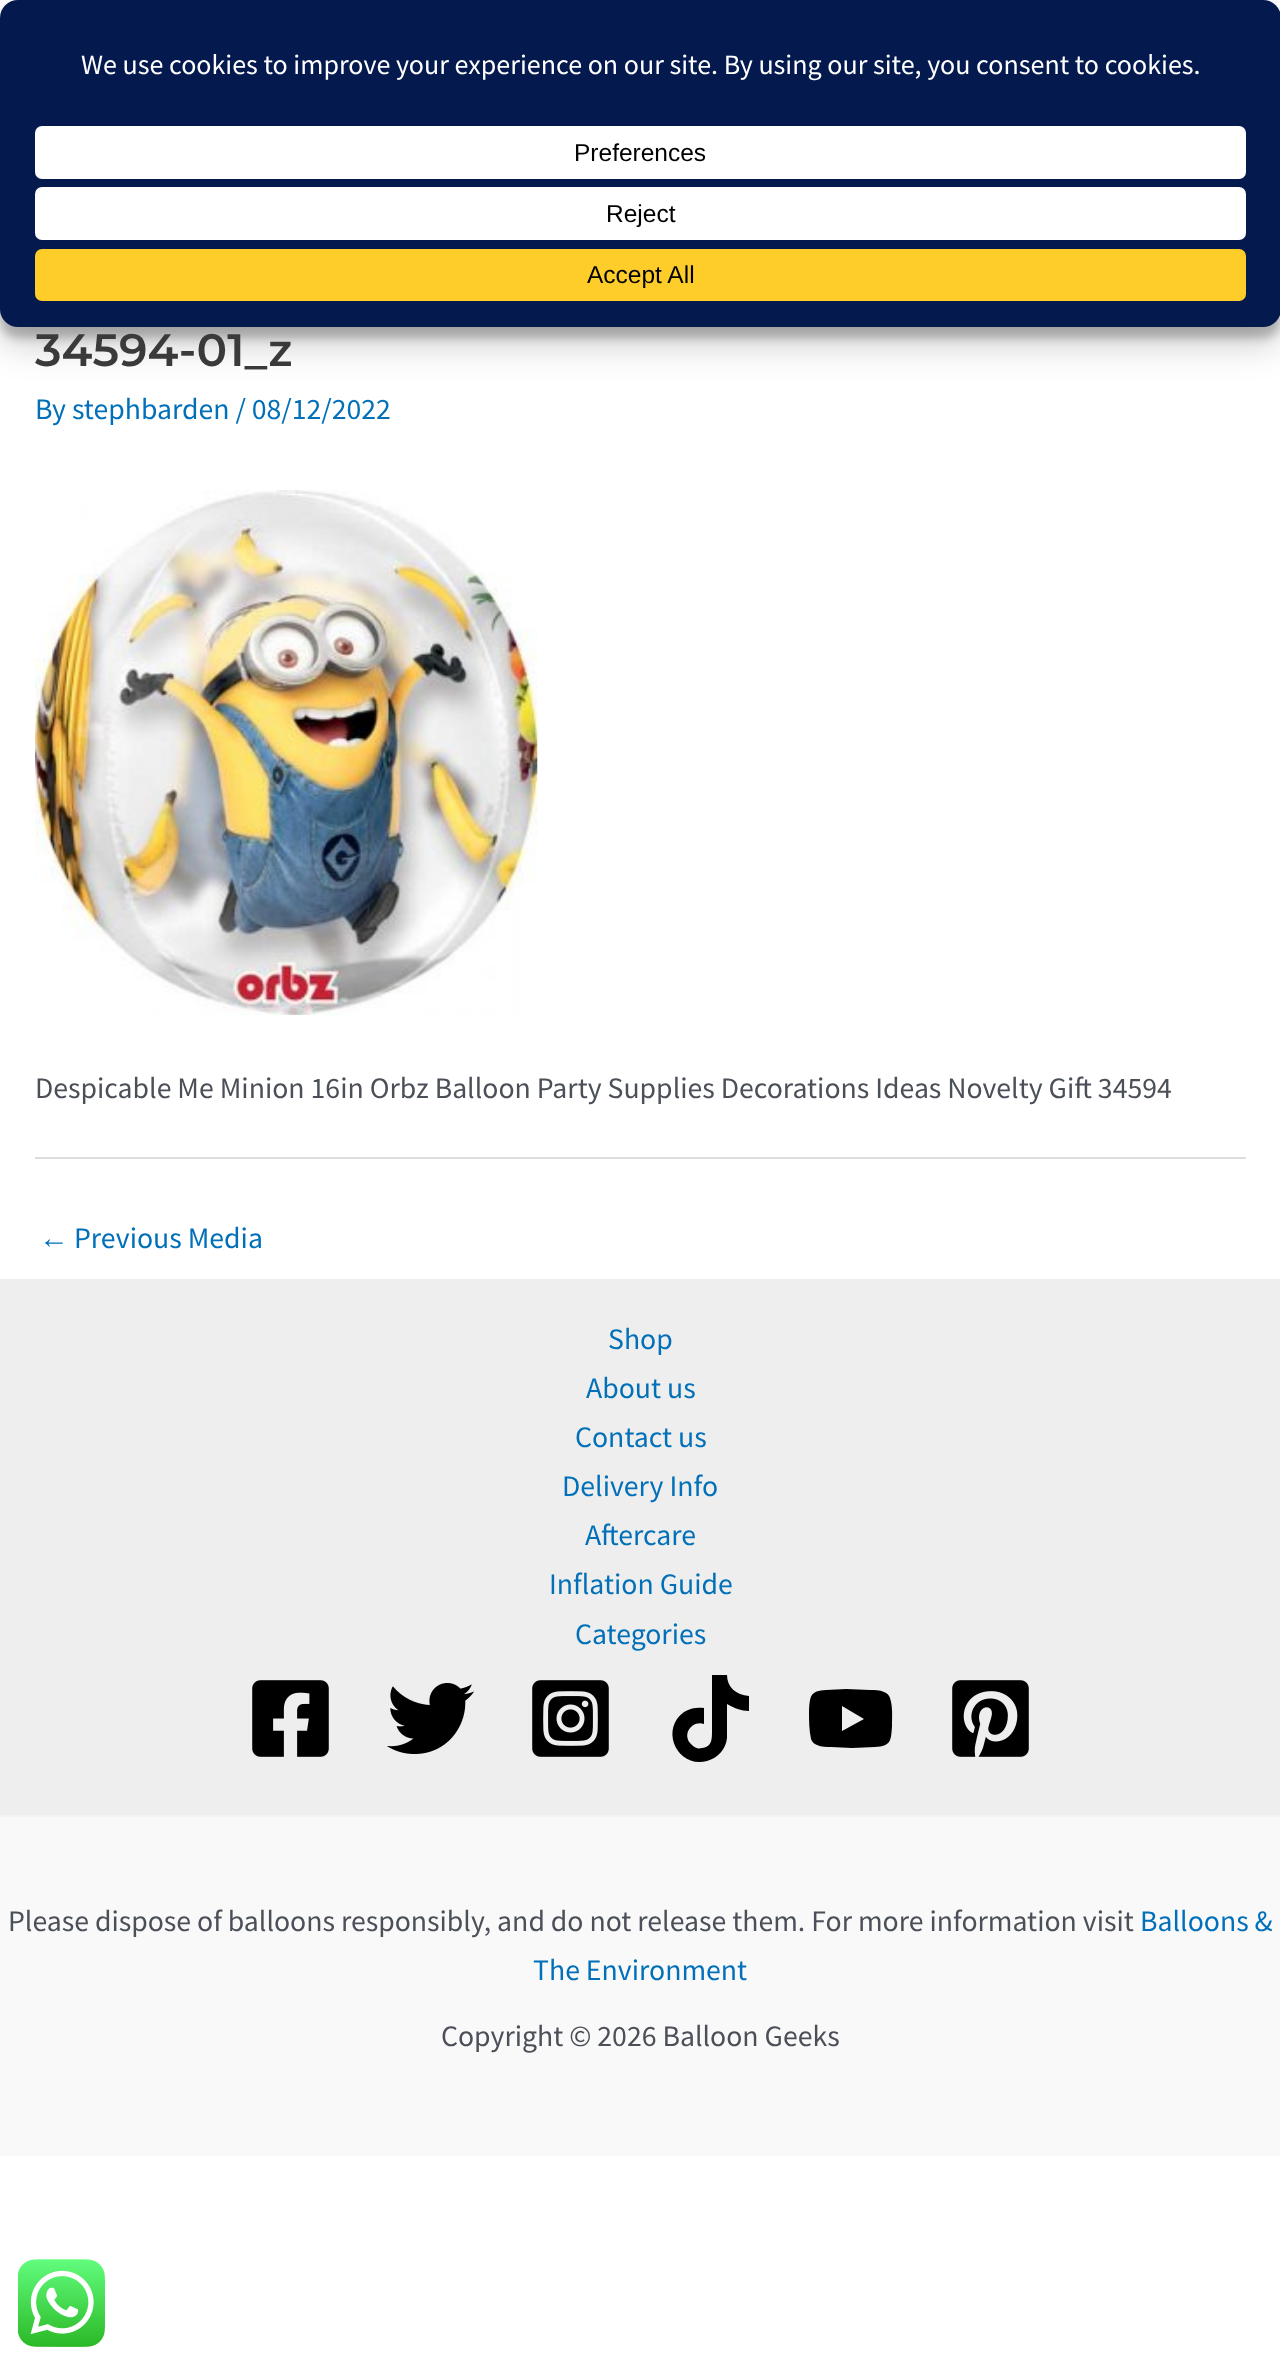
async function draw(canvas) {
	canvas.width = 1280;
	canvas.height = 2363;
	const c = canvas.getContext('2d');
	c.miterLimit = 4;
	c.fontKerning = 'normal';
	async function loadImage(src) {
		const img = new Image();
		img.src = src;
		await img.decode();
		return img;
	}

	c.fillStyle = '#fff';
	c.fillRect(0, 0, 1280, 2363);
	c.fillStyle = '#0000003b';
	c.filter = 'blur(5px)';
	c.beginPath();
	c.roundRect(0, 11, 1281, 327, 18);
	c.fill();
	c.filter = 'none';
	c.fillStyle = '#00000030';
	c.filter = 'blur(17.5px)';
	c.beginPath();
	c.roundRect(0, 18, 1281, 327, 18);
	c.fill();
	c.filter = 'none';
	c.fillStyle = '#04194e';
	c.beginPath();
	c.roundRect(0, 0, 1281, 327, 18);
	c.fill();
	c.font = '28px Source Sans Pro';
	c.fillStyle = '#fff';
	c.fillText('We use cookies to improve your experience on our site. By using our site, you consent to cookies.', 81, 74);
	c.beginPath();
	c.roundRect(35, 126, 1211, 53, 7);
	c.fill();
	c.font = '24.5px Liberation Sans';
	c.fillStyle = '#000';
	c.fillText('Preferences', 574, 161);
	c.fillStyle = '#fff';
	c.beginPath();
	c.roundRect(35, 187, 1211, 53, 7);
	c.fill();
	c.fillStyle = '#000';
	c.fillText('Reject', 606, 222);
	c.fillStyle = '#ffcd2a';
	c.beginPath();
	c.roundRect(35, 249, 1211, 52, 7);
	c.fill();
	c.fillStyle = '#000';
	c.fillText('Accept All', 587, 283);
	c.font = '600 45.5px Montserrat';
	c.fillStyle = '#3a3a3a';
	c.fillText('34594-01_z', 35, 366);
	c.font = '29.75px Source Sans Pro';
	c.fillStyle = '#0170b9';
	c.fillText('By stephbarden / 08/12/2022', 35, 419);
	c.drawImage(await loadImage('img1.png'), 35, 490, 503, 525);
	c.fillStyle = '#4b4f58';
	c.fillText('Despicable Me Minion 16in Orbz Balloon Party Supplies Decorations Ideas Novelty Gift 34594', 35, 1098);
	c.fillStyle = '#ddd';
	c.fillRect(35, 1157, 1211, 2);
	c.font = '29.75px Liberation Sans';
	c.fillStyle = '#0170b9';
	c.fillText('←', 39, 1248);
	c.font = '29.75px Source Sans Pro';
	c.fillText('Previous Media', 74, 1248);
	c.fillStyle = '#eee';
	c.fillRect(0, 1279, 1280, 536);
	c.fillStyle = '#0170b9';
	for (const [text, x, y] of [
		['Shop', 608, 1349],
		['About us', 586, 1398],
		['Contact us', 575, 1447],
		['Delivery Info', 562, 1496],
		['Aftercare', 585, 1545],
		['Inflation Guide', 549, 1594],
		['Categories', 575, 1644],
	]) {
		c.fillText(text, x, y);
	}
	c.drawImage(await loadImage('img2.png'), 252, 1680, 77, 77);
	c.drawImage(await loadImage('img3.png'), 387, 1683, 87, 71);
	c.drawImage(await loadImage('img4.png'), 532, 1680, 77, 77);
	c.fillStyle = '#000';
	c.beginPath();
	c.moveTo(712, 1675);
	c.lineTo(727, 1675);
	c.bezierCurveTo(727, 1687, 736, 1695, 749, 1696);
	c.lineTo(749, 1711);
	c.bezierCurveTo(741, 1711, 734, 1708, 727, 1704);
	c.lineTo(727, 1738);
	c.bezierCurveTo(726, 1749, 718, 1758, 707, 1761);
	c.bezierCurveTo(678, 1769, 659, 1730, 684, 1712);
	c.bezierCurveTo(690, 1708, 697, 1707, 704, 1708);
	c.lineTo(704, 1724);
	c.bezierCurveTo(691, 1720, 681, 1736, 692, 1745);
	c.bezierCurveTo(695, 1748, 698, 1749, 702, 1748);
	c.bezierCurveTo(712, 1747, 712, 1739, 712, 1731);
	c.closePath();
	c.fill();
	c.beginPath();
	c.moveTo(890, 1698);
	c.bezierCurveTo(889, 1695, 887, 1693, 884, 1692);
	c.bezierCurveTo(880, 1690, 874, 1690, 870, 1690);
	c.lineTo(846, 1689);
	c.lineTo(826, 1690);
	c.bezierCurveTo(810, 1691, 810, 1696, 809, 1711);
	c.bezierCurveTo(809, 1720, 809, 1730, 811, 1739);
	c.bezierCurveTo(812, 1742, 814, 1744, 817, 1745);
	c.bezierCurveTo(821, 1747, 827, 1747, 831, 1747);
	c.lineTo(852, 1748);
	c.lineTo(875, 1747);
	c.bezierCurveTo(891, 1746, 891, 1741, 892, 1726);
	c.bezierCurveTo(892, 1717, 893, 1707, 890, 1698);
	c.closePath();
	c.moveTo(842, 1731);
	c.lineTo(842, 1706);
	c.lineTo(864, 1719);
	c.closePath();
	c.fill();
	c.drawImage(await loadImage('img5.png'), 952, 1680, 77, 77);
	c.fillStyle = '#f9f9f9';
	c.fillRect(0, 1817, 1280, 339);
	c.fillStyle = '#f2f5f7';
	c.fillRect(0, 1815, 1280, 2);
	c.fillStyle = '#4b4f58';
	c.fillText('Please dispose of balloons responsibly, and do not release them. For more information visit', 8, 1931);
	c.fillStyle = '#0170b9';
	c.fillText('Balloons &', 1140, 1931);
	c.fillText('The Environment', 533, 1980);
	c.fillStyle = '#4b4f58';
	c.fillText('Copyright © 2026 Balloon Geeks', 441, 2046);
	c.drawImage(await loadImage('img6.png'), 18, 2259, 87, 88);
}

draw(document.querySelector('canvas'));
